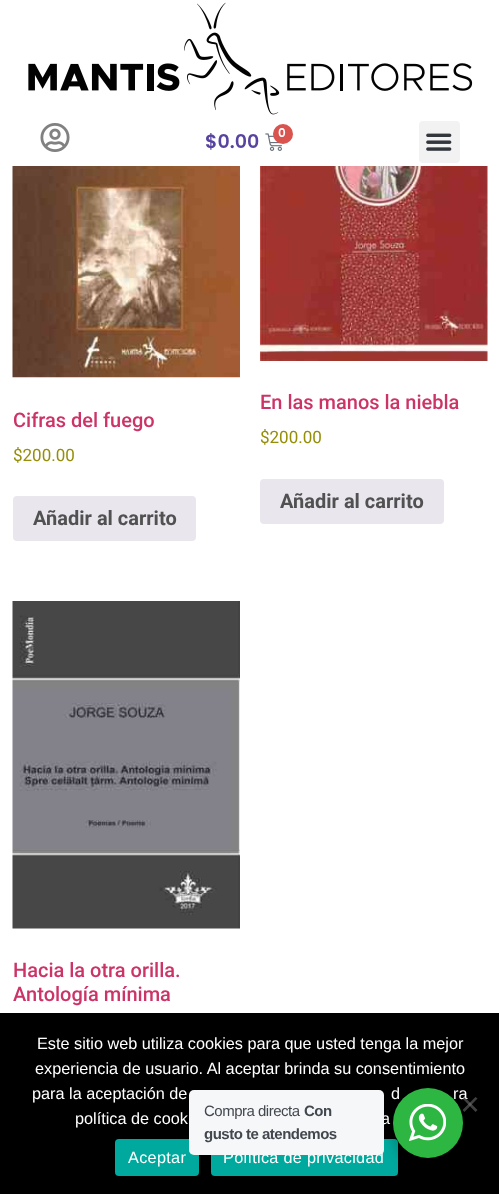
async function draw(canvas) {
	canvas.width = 499;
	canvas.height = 1194;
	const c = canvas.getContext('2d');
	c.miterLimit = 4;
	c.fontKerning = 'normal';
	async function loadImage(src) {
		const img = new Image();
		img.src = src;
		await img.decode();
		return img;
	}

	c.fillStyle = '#fff';
	c.fillRect(0, 0, 499, 1194);
	c.drawImage(await loadImage('img1.png'), 28, 2, 445, 113);
	c.drawImage(await loadImage('img2.png'), 40, 123, 30, 29);
	c.drawImage(await loadImage('img3.png'), 265, 133, 17, 18);
	c.fillStyle = '#d9534f';
	c.beginPath();
	c.arc(283, 134, 10, 0, 2 * Math.PI);
	c.fill();
	c.font = '600 12px Poppins';
	c.fillStyle = '#fff';
	c.fillText('0', 278, 137);
	c.font = '600 19px Poppins';
	c.fillStyle = '#5943a0';
	c.fillText('$0.00', 205, 148);
	c.fillStyle = '#f2f2f2';
	c.beginPath();
	c.roundRect(419, 121, 41, 42, 4);
	c.fill();
	c.drawImage(await loadImage('img4.png'), 426, 133, 26, 18);
	c.drawImage(await loadImage('img5.png'), 12, 166, 228, 212);
	c.font = '500 20px Roboto';
	c.fillStyle = '#c36';
	c.fillText('Cifras del fuego', 13, 427);
	c.font = '17px Roboto';
	c.fillStyle = '#958e09';
	c.fillText('$200.00', 13, 461);
	c.fillStyle = '#e9e6ed';
	c.beginPath();
	c.roundRect(13, 496, 183, 45, 4);
	c.fill();
	c.font = 'bold 20px Roboto';
	c.fillStyle = '#515151';
	c.fillText('Añadir al carrito', 33, 525);
	c.drawImage(await loadImage('img6.png'), 260, 166, 228, 195);
	c.font = '500 20px Roboto';
	c.fillStyle = '#c36';
	c.fillText('En las manos la niebla', 260, 409);
	c.font = '17px Roboto';
	c.fillStyle = '#958e09';
	c.fillText('$200.00', 260, 443);
	c.fillStyle = '#e9e6ed';
	c.beginPath();
	c.roundRect(260, 479, 184, 45, 4);
	c.fill();
	c.font = 'bold 20px Roboto';
	c.fillStyle = '#515151';
	c.fillText('Añadir al carrito', 280, 508);
	c.drawImage(await loadImage('img7.png'), 12, 601, 228, 328);
	c.font = '500 20px Roboto';
	c.fillStyle = '#c36';
	c.fillText('Hacia la otra orilla.', 13, 977);
	c.fillText('Antología mínima', 13, 1001);
	c.fillStyle = '#000';
	c.fillRect(0, 1013, 499, 181);
	c.font = '16.25px Liberation Sans';
	c.fillStyle = '#fff';
	for (const [text, x, y] of [
		['Este sitio web utiliza cookies para que usted tenga la mejor', 37, 1049],
		['experiencia de usuario. Al aceptar brinda su consentimiento', 35, 1074],
		['para la aceptación de', 32, 1099],
		['d', 391, 1099],
		['ra', 453, 1099],
		['política de cook', 75, 1124],
		['a', 381, 1124],
	]) {
		c.fillText(text, x, y);
	}
	c.fillStyle = '#404040';
	c.beginPath();
	c.moveTo(475.5, 1097);
	c.lineTo(477.5, 1098.5);
	c.lineTo(464.5, 1112);
	c.lineTo(462.5, 1110);
	c.closePath();
	c.fill();
	c.fillStyle = '#80808080';
	c.beginPath();
	c.moveTo(462.5, 1098.5);
	c.lineTo(464.5, 1097);
	c.lineTo(477.5, 1110);
	c.lineTo(475.5, 1112);
	c.closePath();
	c.fill();
	c.fillStyle = '#00a99d';
	c.beginPath();
	c.roundRect(115, 1139, 84, 37, 4);
	c.fill();
	c.letterSpacing = '0.3px';
	c.fillStyle = '#fff';
	c.fillText('Aceptar', 128, 1163);
	c.fillStyle = '#00a99d';
	c.beginPath();
	c.roundRect(211, 1139, 187, 37, 4);
	c.fill();
	c.fillStyle = '#fff';
	c.fillText('Política de privacidad', 223, 1163);
	c.fillStyle = '#00000024';
	c.filter = 'blur(5px)';
	c.beginPath();
	c.roundRect(390, 1093, 75, 75, 37.5);
	c.fill();
	c.filter = 'none';
	c.fillStyle = '#f5f7f9';
	c.beginPath();
	c.roundRect(189, 1090, 195, 65, 5);
	c.fill();
	c.letterSpacing = '-0.5px';
	c.font = '15px Liberation Sans';
	c.fillStyle = '#43474e';
	c.fillText('Compra directa', 204, 1116);
	c.font = 'bold 15px Liberation Sans';
	c.fillText('Con', 304, 1116);
	c.fillText('gusto te atendemos', 204, 1139);
	c.fillStyle = '#2db742';
	c.beginPath();
	c.arc(428, 1123, 35, 0, 2 * Math.PI);
	c.fill();
	c.drawImage(await loadImage('img8.png'), 409, 1104, 37, 37);
}

draw(document.querySelector('canvas'));
